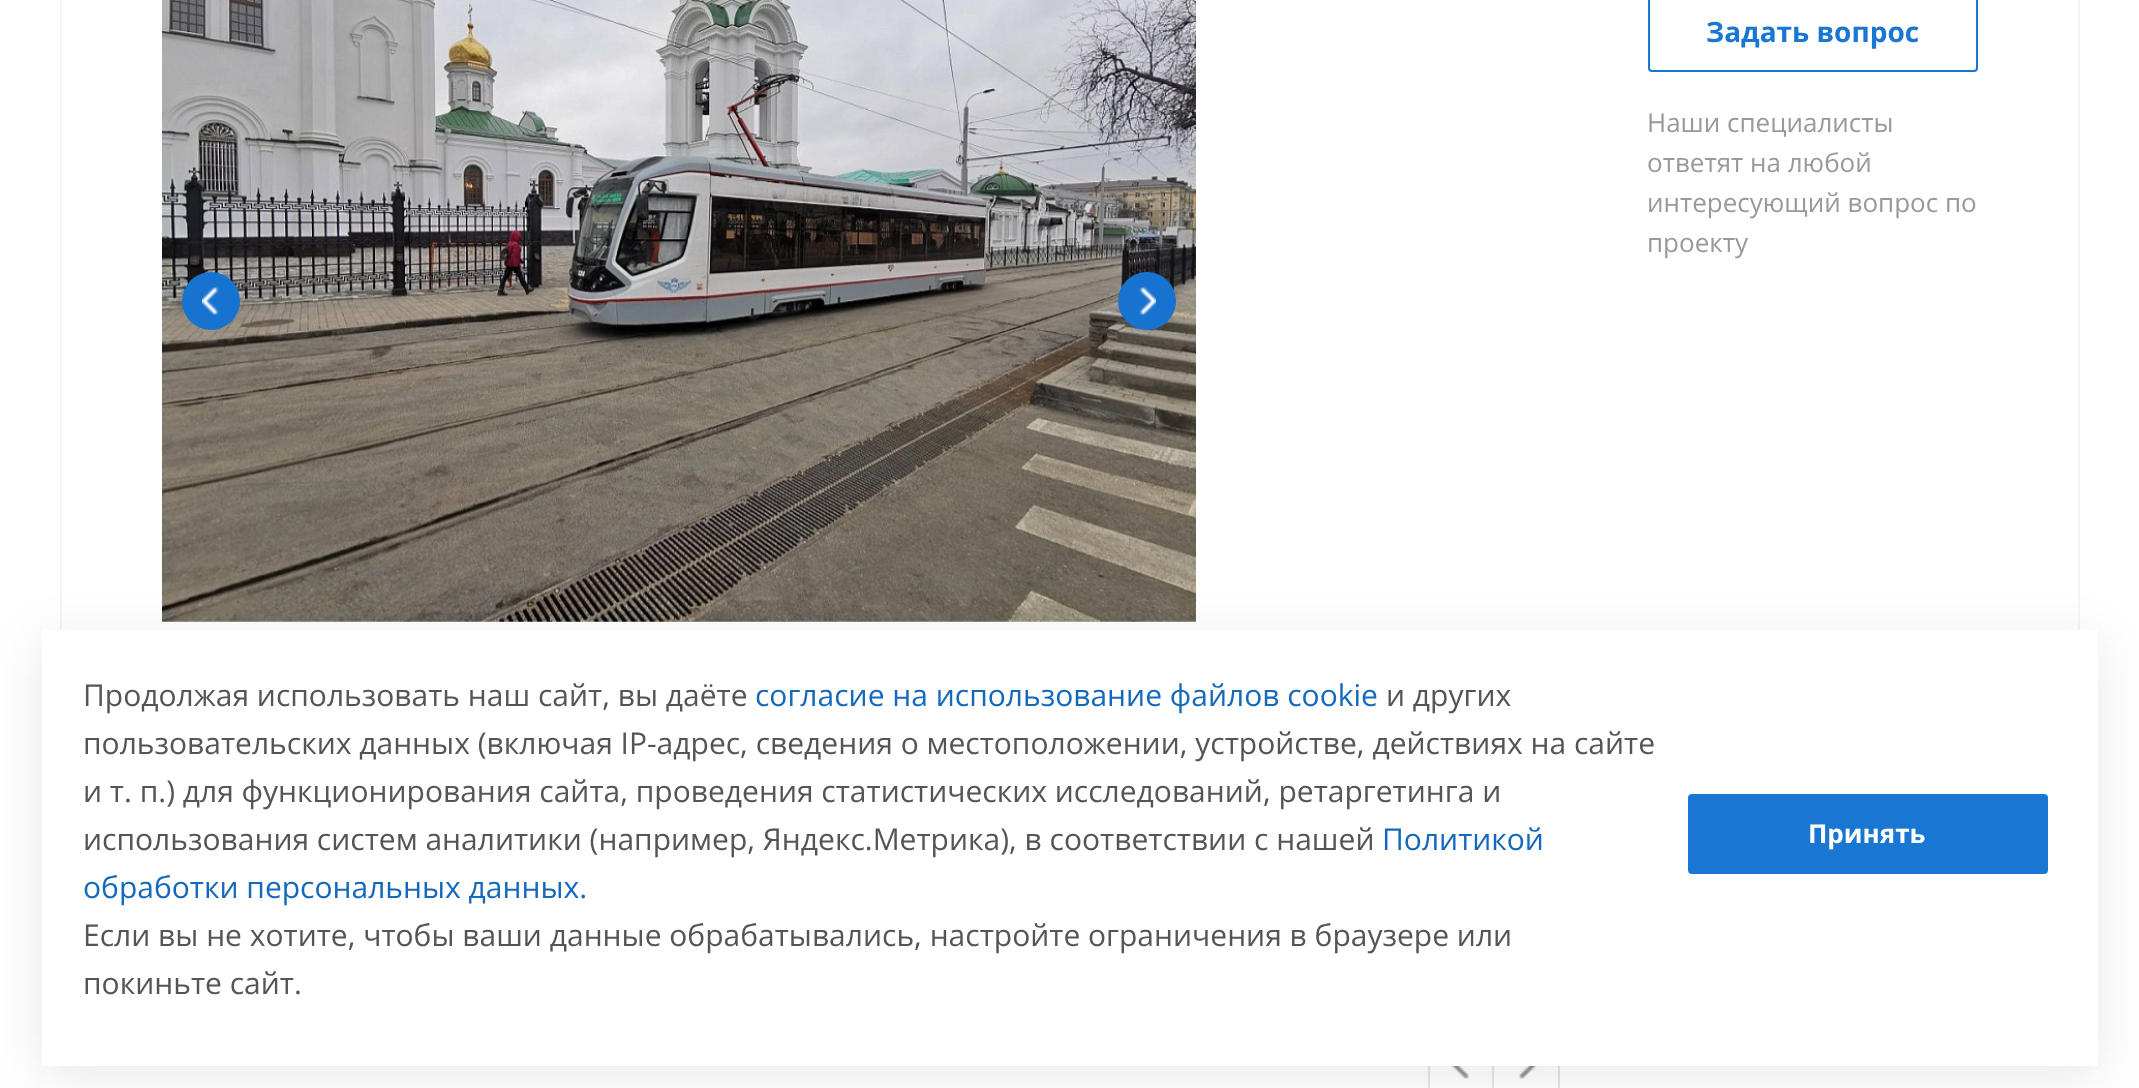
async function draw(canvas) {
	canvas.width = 2139;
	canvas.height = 1088;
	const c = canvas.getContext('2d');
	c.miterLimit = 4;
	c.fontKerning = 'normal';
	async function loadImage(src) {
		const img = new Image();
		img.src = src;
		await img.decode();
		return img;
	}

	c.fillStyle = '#fff';
	c.fillRect(0, 0, 2139, 1088);
	c.strokeStyle = '#f5f5f5';
	c.lineWidth = 2;
	c.strokeRect(61, -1, 2018, 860);
	c.drawImage(await loadImage('img1.png'), 162, 0, 1034, 622);
	c.fillStyle = '#1773cf';
	c.beginPath();
	c.arc(211, 301, 29, 0, 2 * Math.PI);
	c.fill();
	c.drawImage(await loadImage('img2.png'), 202, 287, 17, 28);
	c.beginPath();
	c.arc(1147, 301, 29, 0, 2 * Math.PI);
	c.fill();
	c.drawImage(await loadImage('img3.png'), 1139, 287, 17, 28);
	c.beginPath();
	c.roundRect(1649, -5, 328, 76, 3);
	c.strokeStyle = '#1976d2';
	c.stroke();
	c.font = 'bold 28px Open Sans';
	c.fillStyle = '#1976d2';
	c.fillText('Задать вопрос', 1706, 42);
	c.font = '26px Open Sans';
	c.fillStyle = '#999';
	for (const [text, x, y] of [
		['Наши специалисты', 1647, 132],
		['ответят на любой', 1647, 172],
		['интересующий вопрос по', 1647, 212],
		['проекту', 1647, 252],
	]) {
		c.fillText(text, x, y);
	}
	c.strokeStyle = '#e5e5e5';
	c.strokeRect(1429, 1031, 64, 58);
	c.drawImage(await loadImage('img4.png'), 1451, 1066, 18, 13);
	c.fillStyle = '#e5e5e5';
	c.fillRect(1558, 1066, 2, 22);
	c.drawImage(await loadImage('img5.png'), 1519, 1066, 18, 13);
	c.fillStyle = '#1219261a';
	c.filter = 'blur(25px)';
	c.beginPath();
	c.rect(42, 640, 2056, 436);
	c.fill();
	c.filter = 'none';
	c.fillStyle = '#fff';
	c.fillRect(42, 630, 2056, 436);
	c.font = '30px Open Sans';
	c.fillStyle = '#555';
	c.fillText('Продолжая использовать наш сайт, вы даёте', 83, 706);
	c.fillStyle = '#1569bc';
	c.fillText('согласие на использование файлов cookie', 755, 706);
	c.fillStyle = '#555';
	for (const [text, x, y] of [
		['и других', 1386, 706],
		['пользовательских данных (включая IP-адрес, сведения о местоположении, устройстве, действиях на сайте', 83, 754],
		['и т. п.) для функционирования сайта, проведения статистических исследований, ретаргетинга и', 83, 802],
		['использования систем аналитики (например, Яндекс.Метрика), в соответствии с нашей', 83, 850],
	]) {
		c.fillText(text, x, y);
	}
	c.fillStyle = '#1569bc';
	c.fillText('Политикой', 1382, 850);
	c.fillText('обработки персональных данных.', 83, 898);
	c.fillStyle = '#555';
	c.fillText('Если вы не хотите, чтобы ваши данные обрабатывались, настройте ограничения в браузере или', 83, 946);
	c.fillText('покиньте сайт.', 83, 994);
	c.fillStyle = '#1976d2';
	c.beginPath();
	c.roundRect(1689, 795, 358, 78, 3);
	c.fill();
	c.strokeStyle = '#1976d2';
	c.stroke();
	c.font = 'bold 26px Open Sans';
	c.fillStyle = '#fff';
	c.fillText('Принять', 1808, 843);
}

draw(document.querySelector('canvas'));
